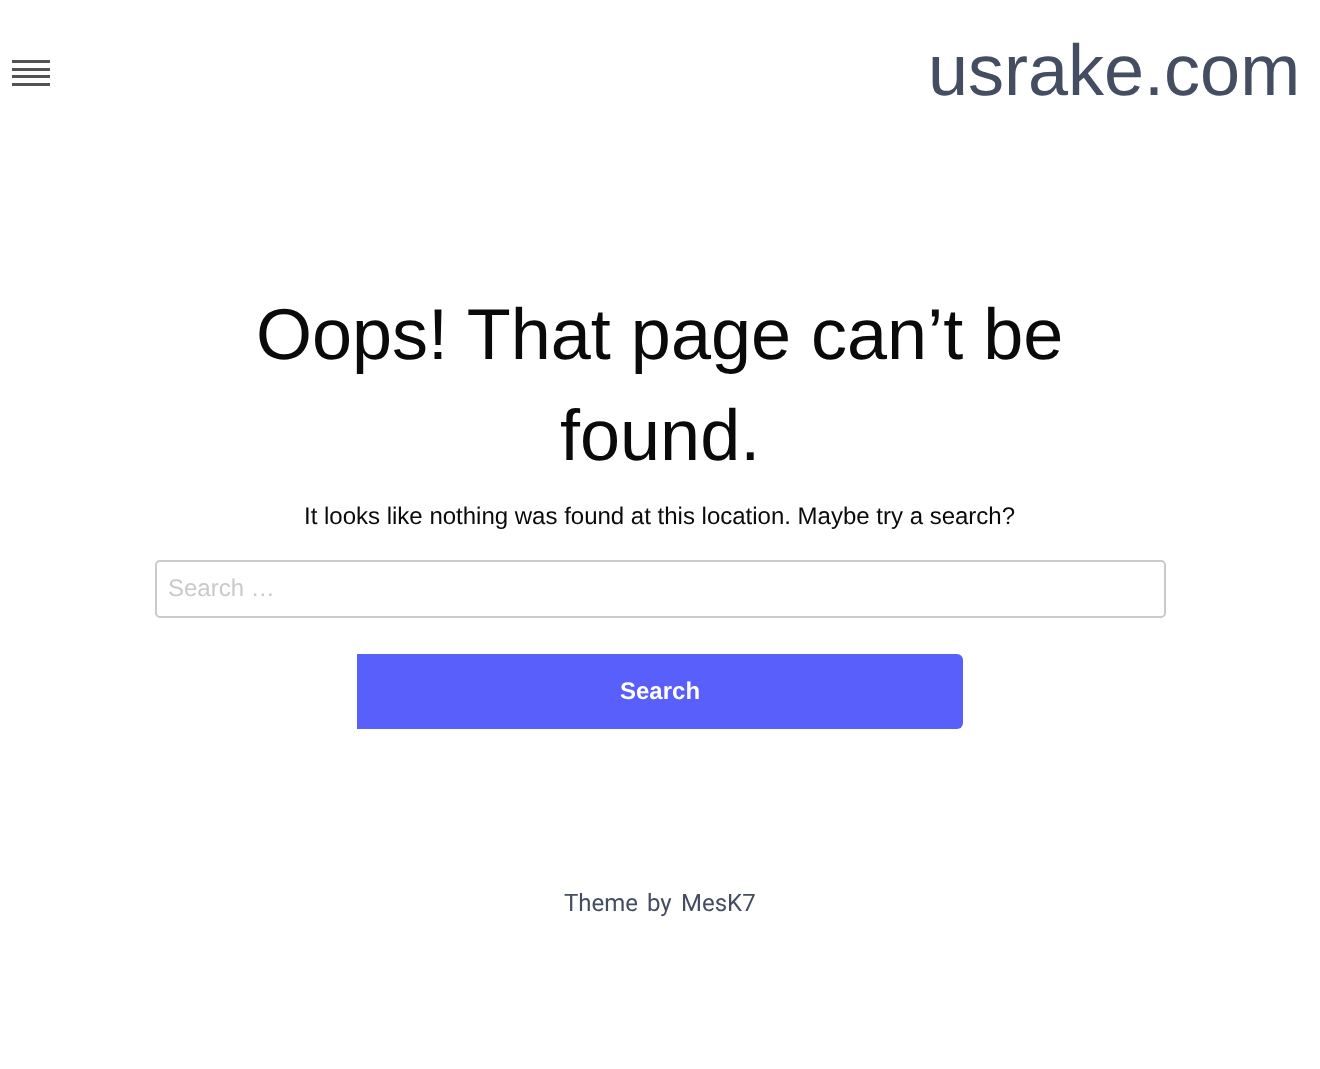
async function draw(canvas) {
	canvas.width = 1320;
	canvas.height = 1069;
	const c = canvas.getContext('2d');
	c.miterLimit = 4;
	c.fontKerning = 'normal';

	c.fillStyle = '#fff';
	c.fillRect(0, 0, 1320, 1069);
	for (const [x, y, w, h, color] of [
		[12, 60, 38, 3, '#535353'],
		[12, 68, 38, 3, '#535353'],
		[12, 75, 38, 3, '#535353'],
		[12, 83, 38, 3, '#535353'],
	]) {
		c.fillStyle = color;
		c.fillRect(x, y, w, h);
	}
	c.font = '72px Liberation Sans';
	c.fillStyle = '#454d63';
	c.fillText('usrake.com', 928, 95);
	c.fillStyle = '#0a0a0a';
	c.fillText('Oops! That page can’t be', 256, 359);
	c.fillText('found.', 560, 460);
	c.font = '24px Liberation Sans';
	c.fillText('It looks like nothing was found at this location. Maybe try a search?', 304, 524);
	c.beginPath();
	c.roundRect(156, 561, 1009, 56, 4);
	c.strokeStyle = '#cacaca';
	c.lineWidth = 2;
	c.stroke();
	c.fillStyle = '#cacaca';
	c.fillText('Search …', 168, 596);
	c.fillStyle = '#595ffb';
	c.beginPath();
	c.roundRect(357, 654, 606, 75, [0, 6, 6, 0]);
	c.fill();
	c.font = 'bold 24px Liberation Sans';
	c.fillStyle = '#fff';
	c.fillText('Search', 620, 699);
	c.wordSpacing = '3px';
	c.font = '24px Roboto';
	c.fillStyle = '#454d63';
	c.fillText('Theme by', 564, 911);
	c.wordSpacing = '0px';
	c.fillText('MesK7', 681, 911);
}

draw(document.querySelector('canvas'));
